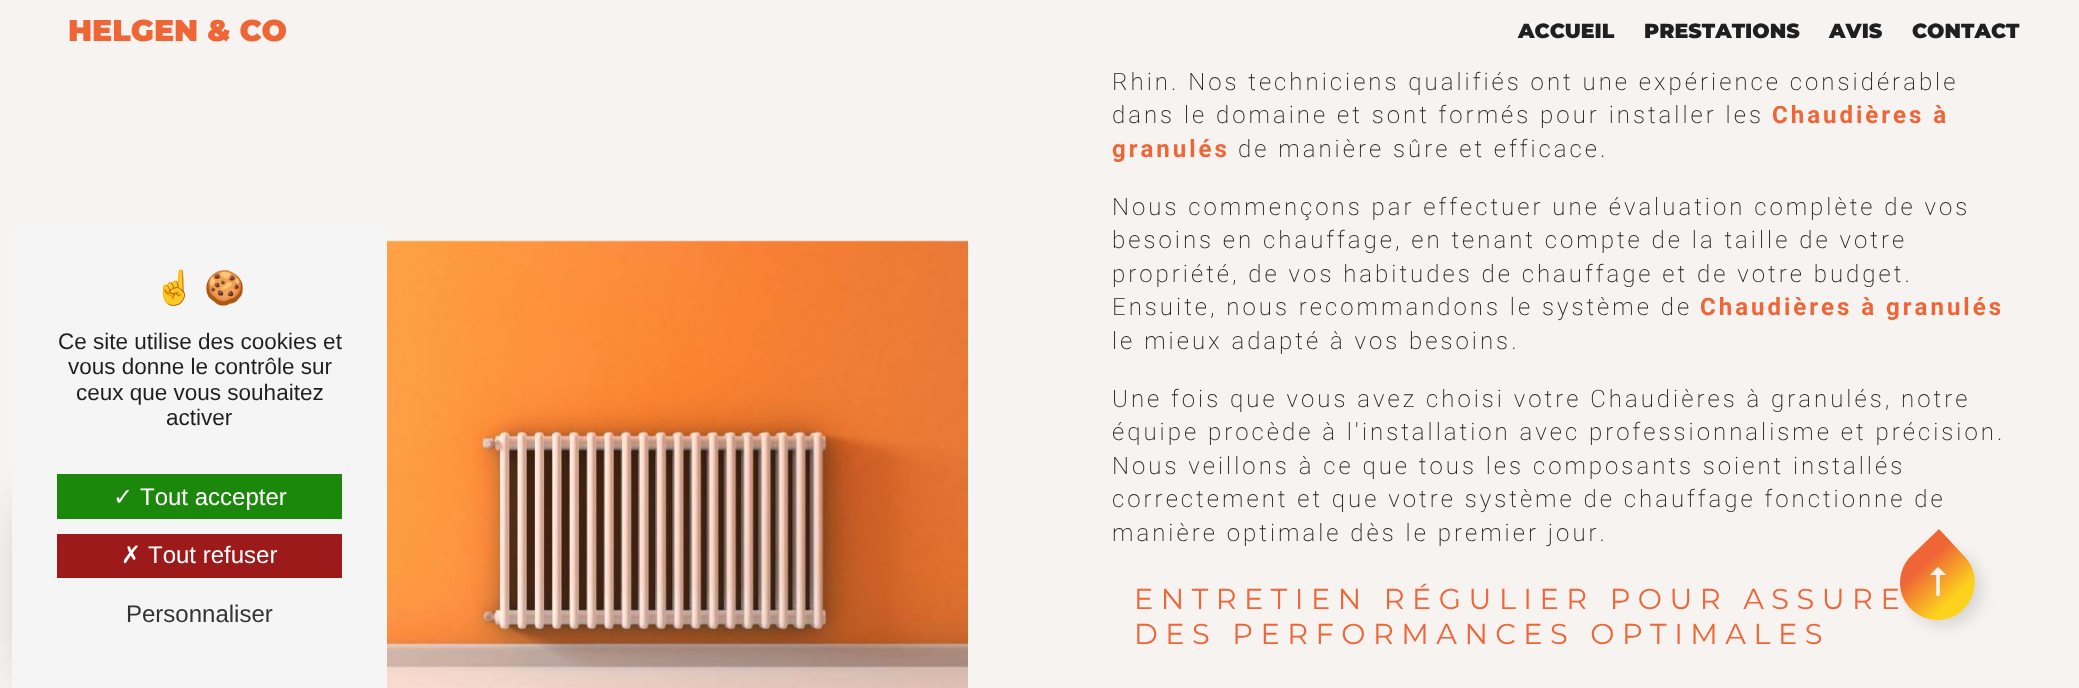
async function draw(canvas) {
	canvas.width = 2079;
	canvas.height = 688;
	const c = canvas.getContext('2d');
	c.miterLimit = 4;
	c.fontKerning = 'none';
	async function loadImage(src) {
		const img = new Image();
		img.src = src;
		await img.decode();
		return img;
	}
	let gradient;

	c.fillStyle = '#f7f3f1';
	c.fillRect(0, 0, 2079, 688);
	c.font = '900 30px Montserrat';
	c.fillStyle = '#ef6536';
	c.fillText('HELGEN & CO', 68, 41);
	c.font = '900 20.5px Montserrat';
	c.fillStyle = '#1f1f1f';
	for (const [text, x, y] of [
		['ACCUEIL', 1518, 38],
		['PRESTATIONS', 1644, 38],
		['AVIS', 1829, 38],
		['CONTACT', 1912, 38],
	]) {
		c.fillText(text, x, y);
	}
	c.drawImage(await loadImage('img1.png'), 387, 240, 581, 448);
	c.letterSpacing = '3px';
	c.font = '200 24px Roboto';
	c.fillText('Rhin. Nos techniciens qualifiés ont une expérience considérable', 1112, 90);
	c.fillText('dans le domaine et sont formés pour installer les', 1112, 123);
	c.font = 'bold 24px Roboto';
	c.fillStyle = '#ef6536';
	c.fillText('Chaudières à', 1772, 123);
	c.fillText('granulés', 1112, 157);
	c.font = '200 24px Roboto';
	c.fillStyle = '#1f1f1f';
	for (const [text, x, y] of [
		['de manière sûre et efficace.', 1238, 157],
		['Nous commençons par effectuer une évaluation complète de vos', 1112, 215],
		['besoins en chauffage, en tenant compte de la taille de votre', 1112, 248],
		['propriété, de vos habitudes de chauffage et de votre budget.', 1112, 282],
		['Ensuite, nous recommandons le système de', 1112, 315],
	]) {
		c.fillText(text, x, y);
	}
	c.font = 'bold 24px Roboto';
	c.fillStyle = '#ef6536';
	c.fillText('Chaudières à granulés', 1700, 315);
	c.font = '200 24px Roboto';
	c.fillStyle = '#1f1f1f';
	for (const [text, x, y] of [
		['le mieux adapté à vos besoins.', 1112, 349],
		['Une fois que vous avez choisi votre Chaudières à granulés, notre', 1112, 407],
		['équipe procède à l\'installation avec professionnalisme et précision.', 1112, 440],
		['Nous veillons à ce que tous les composants soient installés', 1112, 474],
		['correctement et que votre système de chauffage fonctionne de', 1112, 507],
		['manière optimale dès le premier jour.', 1112, 541],
	]) {
		c.fillText(text, x, y);
	}
	c.letterSpacing = '7.5px';
	c.font = '28.8px Montserrat';
	c.fillStyle = '#ef6536';
	c.fillText('ENTRETIEN RÉGULIER POUR ASSURE', 1134, 609);
	c.fillText('DES PERFORMANCES OPTIMALES', 1134, 644);
	c.fillStyle = '#0000001f';
	c.filter = 'blur(7.5px)';
	c.beginPath();
	c.roundRect(1907, 551, 75, 75, 37.5);
	c.fill();
	c.filter = 'none';
	gradient = c.createLinearGradient(1912, 555, 1963, 610);
	gradient.addColorStop(0.2, '#ef6536');
	gradient.addColorStop(0.8, '#fcd21d');
	c.fillStyle = gradient;
	c.beginPath();
	c.moveTo(1939, 529);
	c.lineTo(1965, 557);
	c.bezierCurveTo(1979, 572, 1978, 595, 1963, 610);
	c.bezierCurveTo(1948, 624, 1924, 623, 1910, 608);
	c.bezierCurveTo(1896, 593, 1897, 569, 1912, 555);
	c.closePath();
	c.fill();
	c.drawImage(await loadImage('img2.png'), 1930, 567, 16, 30);
	c.fillStyle = '#00000026';
	c.filter = 'blur(22.5px)';
	c.beginPath();
	c.rect(30, 503, 285, 171);
	c.fill();
	c.filter = 'none';
	c.fillStyle = '#0000001a';
	c.filter = 'blur(30px)';
	c.beginPath();
	c.rect(30, 510, 285, 171);
	c.fill();
	c.filter = 'none';
	c.fillStyle = '#f5f5f5';
	c.beginPath();
	c.moveTo(20, 225);
	c.lineTo(379, 225);
	c.bezierCurveTo(383.5, 225, 387, 228.5, 387, 233);
	c.lineTo(387, 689);
	c.lineTo(12, 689);
	c.lineTo(12, 233);
	c.bezierCurveTo(12, 228.5, 15.5, 225, 20, 225);
	c.closePath();
	c.fill();
	c.letterSpacing = '0px';
	c.font = '33px Noto Color Emoji';
	c.fillStyle = '#1f1f1f';
	c.fillText('☝', 154, 299);
	c.fillText('🍪', 204, 299);
	c.font = '22.5px Liberation Sans';
	for (const [text, x, y] of [
		['Ce site utilise des cookies et', 58, 349],
		['vous donne le contrôle sur', 68, 374],
		['ceux que vous souhaitez', 76, 400],
		['activer', 166, 425],
	]) {
		c.fillText(text, x, y);
	}
	c.fillStyle = '#1b870b';
	c.fillRect(57, 474, 285, 45);
	c.font = '24px DejaVu Sans';
	c.fillStyle = '#fff';
	c.fillText('✓', 113, 505);
	c.font = '24px Liberation Sans';
	c.fillText('Tout accepter', 140, 505);
	c.fillStyle = '#9c1a1a';
	c.fillRect(57, 534, 285, 44);
	c.font = '24px DejaVu Sans';
	c.fillStyle = '#fff';
	c.fillText('✗', 121, 563);
	c.font = '24px Liberation Sans';
	c.fillText('Tout refuser', 148, 563);
	c.fillStyle = '#333';
	c.fillText('Personnaliser', 126, 622);
}

draw(document.querySelector('canvas'));
